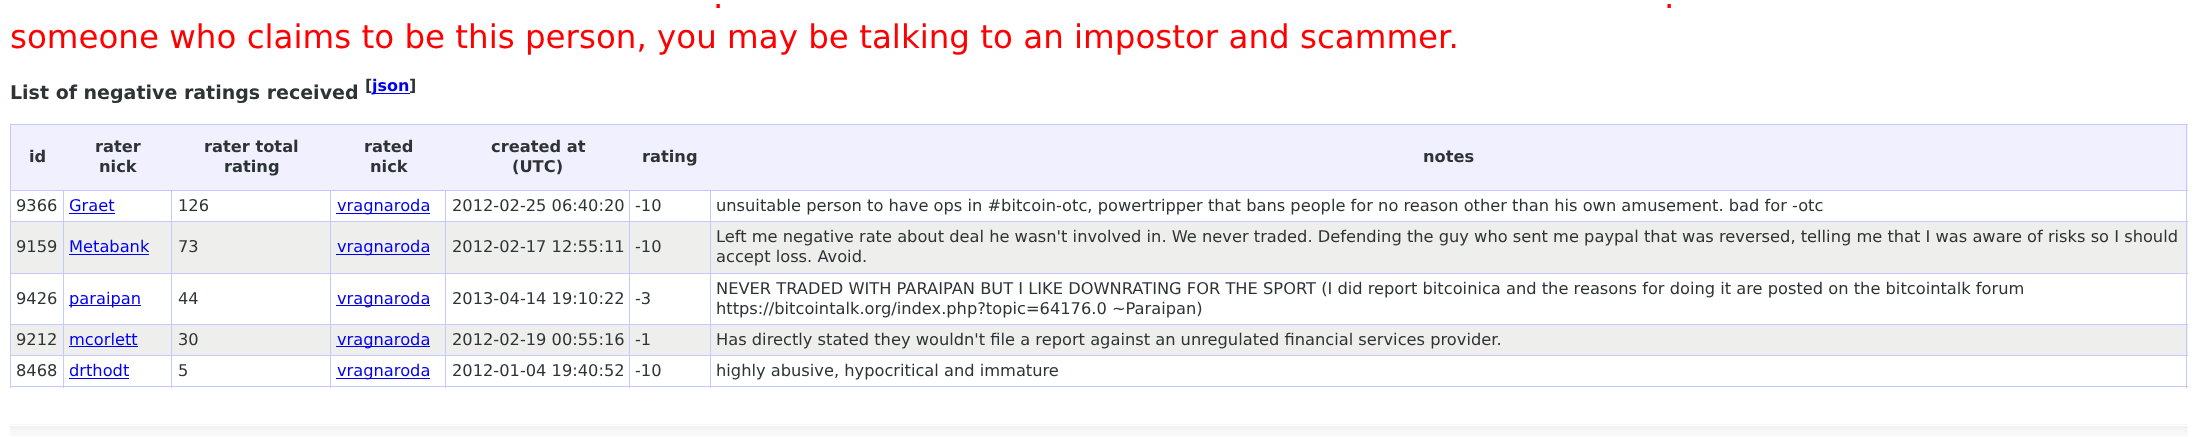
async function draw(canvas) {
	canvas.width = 2197;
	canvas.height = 437;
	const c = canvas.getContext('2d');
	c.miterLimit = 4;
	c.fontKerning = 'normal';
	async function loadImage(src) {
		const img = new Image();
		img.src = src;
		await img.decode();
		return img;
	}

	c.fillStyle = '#fff';
	c.fillRect(0, 0, 2197, 437);
	c.font = '32.5px DejaVu Sans';
	c.fillStyle = '#f00';
	for (const [text, x, y] of [
		['.', 713, 8],
		['.', 1664, 8],
		['someone who claims to be this person, you may be talking to an impostor and scammer.', 10, 48],
	]) {
		c.fillText(text, x, y);
	}
	c.font = 'bold 19px DejaVu Sans';
	c.fillStyle = '#2e3436';
	c.fillText('List of negative ratings received', 10, 99);
	c.font = 'bold 16px DejaVu Sans';
	c.fillText('[', 365, 91);
	c.fillStyle = '#00e';
	c.fillRect(373, 93, 37, 1);
	c.fillText('json', 372, 91);
	c.fillStyle = '#2e3436';
	c.fillText(']', 409, 91);
	for (const [x, y, w, h, color] of [
		[10, 124, 2178, 1, '#c6c9ff'],
		[11, 125, 2177, 65, '#f0f0ff'],
		[11, 222, 2177, 51, '#eeeeec'],
		[11, 325, 2177, 30, '#eeeeec'],
		[2186, 124, 1, 264, '#c6c9ff'],
		[10, 386, 2178, 1, '#c6c9ff'],
		[10, 124, 1, 264, '#c6c9ff'],
	]) {
		c.fillStyle = color;
		c.fillRect(x, y, w, h);
	}
	c.font = 'bold 16.25px DejaVu Sans';
	c.fillStyle = '#2e3436';
	for (const [text, x, y] of [
		['id', 29, 162],
		['rater', 95, 152],
		['nick', 99, 172],
		['rater total', 204, 152],
		['rating', 224, 172],
		['rated', 364, 152],
		['nick', 370, 172],
		['created at', 491, 152],
		['(UTC)', 512, 172],
		['rating', 642, 162],
		['notes', 1423, 162],
	]) {
		c.fillText(text, x, y);
	}
	for (const [x, y, w, h, color] of [
		[710, 190, 1478, 1, '#c6c9ff'],
		[710, 221, 1478, 1, '#c6c9ff'],
		[710, 273, 1478, 1, '#c6c9ff'],
		[710, 324, 1478, 1, '#c6c9ff'],
		[710, 355, 1478, 1, '#c6c9ff'],
		[710, 355, 1, 33, '#c6c9ff'],
		[629, 355, 82, 1, '#c6c9ff'],
		[710, 324, 1, 32, '#c6c9ff'],
		[629, 324, 82, 1, '#c6c9ff'],
		[710, 273, 1, 52, '#c6c9ff'],
		[629, 273, 82, 1, '#c6c9ff'],
		[710, 221, 1, 53, '#c6c9ff'],
		[629, 221, 82, 1, '#c6c9ff'],
		[710, 190, 1, 33, '#c6c9ff'],
		[629, 190, 82, 1, '#c6c9ff'],
		[629, 355, 1, 33, '#c6c9ff'],
		[445, 355, 185, 1, '#c6c9ff'],
		[629, 324, 1, 32, '#c6c9ff'],
		[445, 324, 185, 1, '#c6c9ff'],
		[629, 273, 1, 52, '#c6c9ff'],
		[445, 273, 185, 1, '#c6c9ff'],
		[629, 221, 1, 53, '#c6c9ff'],
		[445, 221, 185, 1, '#c6c9ff'],
		[629, 190, 1, 33, '#c6c9ff'],
		[445, 190, 185, 1, '#c6c9ff'],
		[445, 355, 1, 33, '#c6c9ff'],
		[330, 355, 116, 1, '#c6c9ff'],
		[445, 324, 1, 32, '#c6c9ff'],
		[330, 324, 116, 1, '#c6c9ff'],
		[445, 273, 1, 52, '#c6c9ff'],
		[330, 273, 116, 1, '#c6c9ff'],
		[445, 221, 1, 53, '#c6c9ff'],
		[330, 221, 116, 1, '#c6c9ff'],
		[445, 190, 1, 33, '#c6c9ff'],
		[330, 190, 116, 1, '#c6c9ff'],
		[330, 355, 1, 33, '#c6c9ff'],
		[171, 355, 160, 1, '#c6c9ff'],
		[330, 324, 1, 32, '#c6c9ff'],
		[171, 324, 160, 1, '#c6c9ff'],
		[330, 273, 1, 52, '#c6c9ff'],
		[171, 273, 160, 1, '#c6c9ff'],
		[330, 221, 1, 53, '#c6c9ff'],
		[171, 221, 160, 1, '#c6c9ff'],
		[330, 190, 1, 33, '#c6c9ff'],
		[171, 190, 160, 1, '#c6c9ff'],
		[171, 355, 1, 33, '#c6c9ff'],
		[63, 355, 110, 1, '#c6c9ff'],
		[171, 324, 1, 32, '#c6c9ff'],
		[63, 324, 110, 1, '#c6c9ff'],
		[171, 273, 1, 52, '#c6c9ff'],
		[63, 273, 110, 1, '#c6c9ff'],
		[171, 221, 1, 53, '#c6c9ff'],
		[63, 221, 110, 1, '#c6c9ff'],
		[171, 190, 1, 33, '#c6c9ff'],
		[63, 190, 110, 1, '#c6c9ff'],
		[63, 355, 1, 33, '#c6c9ff'],
		[10, 355, 54, 1, '#c6c9ff'],
		[63, 324, 1, 32, '#c6c9ff'],
		[10, 324, 54, 1, '#c6c9ff'],
		[63, 273, 1, 52, '#c6c9ff'],
		[10, 273, 54, 1, '#c6c9ff'],
		[63, 221, 1, 53, '#c6c9ff'],
		[10, 221, 54, 1, '#c6c9ff'],
		[63, 190, 1, 33, '#c6c9ff'],
		[10, 190, 54, 1, '#c6c9ff'],
	]) {
		c.fillStyle = color;
		c.fillRect(x, y, w, h);
	}
	c.font = '16.25px DejaVu Sans';
	c.fillStyle = '#2e3436';
	c.fillText('9366', 16, 211);
	c.fillStyle = '#00e';
	c.fillText('Graet', 69, 211);
	c.fillRect(69, 213, 46, 1);
	c.fillStyle = '#2e3436';
	c.fillText('126', 178, 211);
	c.fillStyle = '#00e';
	c.fillRect(336, 213, 94, 1);
	c.fillText('vragnaroda', 337, 211);
	c.fillStyle = '#2e3436';
	for (const [text, x, y] of [
		['2012-02-25 06:40:20', 452, 211],
		['-10', 635, 211],
		['unsuitable person to have ops in #bitcoin-otc, powertripper that bans people for no reason other than his own amusement. bad for -otc', 716, 211],
		['9159', 16, 252],
	]) {
		c.fillText(text, x, y);
	}
	c.fillStyle = '#00e';
	c.fillText('Metabank', 69, 252);
	c.fillRect(69, 254, 80, 1);
	c.fillStyle = '#2e3436';
	c.fillText('73', 178, 252);
	c.fillStyle = '#00e';
	c.fillRect(336, 254, 94, 1);
	c.fillText('vragnaroda', 337, 252);
	c.fillStyle = '#2e3436';
	for (const [text, x, y] of [
		['2012-02-17 12:55:11', 452, 252],
		['-10', 635, 252],
		['Left me negative rate about deal he wasn\'t involved in. We never traded. Defending the guy who sent me paypal that was reversed, telling me that I was aware of risks so I should', 716, 242],
		['accept loss. Avoid.', 716, 262],
		['9426', 16, 304],
	]) {
		c.fillText(text, x, y);
	}
	c.fillStyle = '#00e';
	c.fillRect(69, 305, 72, 1);
	c.fillText('paraipan', 69, 304);
	c.fillStyle = '#2e3436';
	c.fillText('44', 178, 304);
	c.fillStyle = '#00e';
	c.fillRect(336, 305, 94, 1);
	c.fillText('vragnaroda', 337, 304);
	c.fillStyle = '#2e3436';
	for (const [text, x, y] of [
		['2013-04-14 19:10:22', 452, 304],
		['-3', 635, 304],
		['NEVER TRADED WITH PARAIPAN BUT I LIKE DOWNRATING FOR THE SPORT (I did report bitcoinica and the reasons for doing it are posted on the bitcointalk forum', 716, 294],
		['https://bitcointalk.org/index.php?topic=64176.0 ~Paraipan)', 716, 314],
		['9212', 16, 345],
	]) {
		c.fillText(text, x, y);
	}
	c.fillStyle = '#00e';
	c.fillText('mcorlett', 69, 345);
	c.fillRect(69, 346, 69, 1);
	c.fillStyle = '#2e3436';
	c.fillText('30', 178, 345);
	c.fillStyle = '#00e';
	c.fillRect(336, 346, 94, 1);
	c.fillText('vragnaroda', 337, 345);
	c.fillStyle = '#2e3436';
	for (const [text, x, y] of [
		['2012-02-19 00:55:16', 452, 345],
		['-1', 635, 345],
		['Has directly stated they wouldn\'t file a report against an unregulated financial services provider.', 716, 345],
		['8468', 16, 376],
	]) {
		c.fillText(text, x, y);
	}
	c.fillStyle = '#00e';
	c.fillText('drthodt', 69, 376);
	c.fillRect(69, 378, 60, 1);
	c.fillStyle = '#2e3436';
	c.fillText('5', 178, 376);
	c.fillStyle = '#00e';
	c.fillRect(336, 378, 94, 1);
	c.fillText('vragnaroda', 337, 376);
	c.fillStyle = '#2e3436';
	for (const [text, x, y] of [
		['2012-01-04 19:40:52', 452, 376],
		['-10', 635, 376],
		['highly abusive, hypocritical and immature', 716, 376],
	]) {
		c.fillText(text, x, y);
	}
	c.drawImage(await loadImage('img1.png'), 10, 424, 2178, 12);
	c.fillStyle = '#fff';
	c.fillRect(10, 425, 2178, 1);
}

draw(document.querySelector('canvas'));
